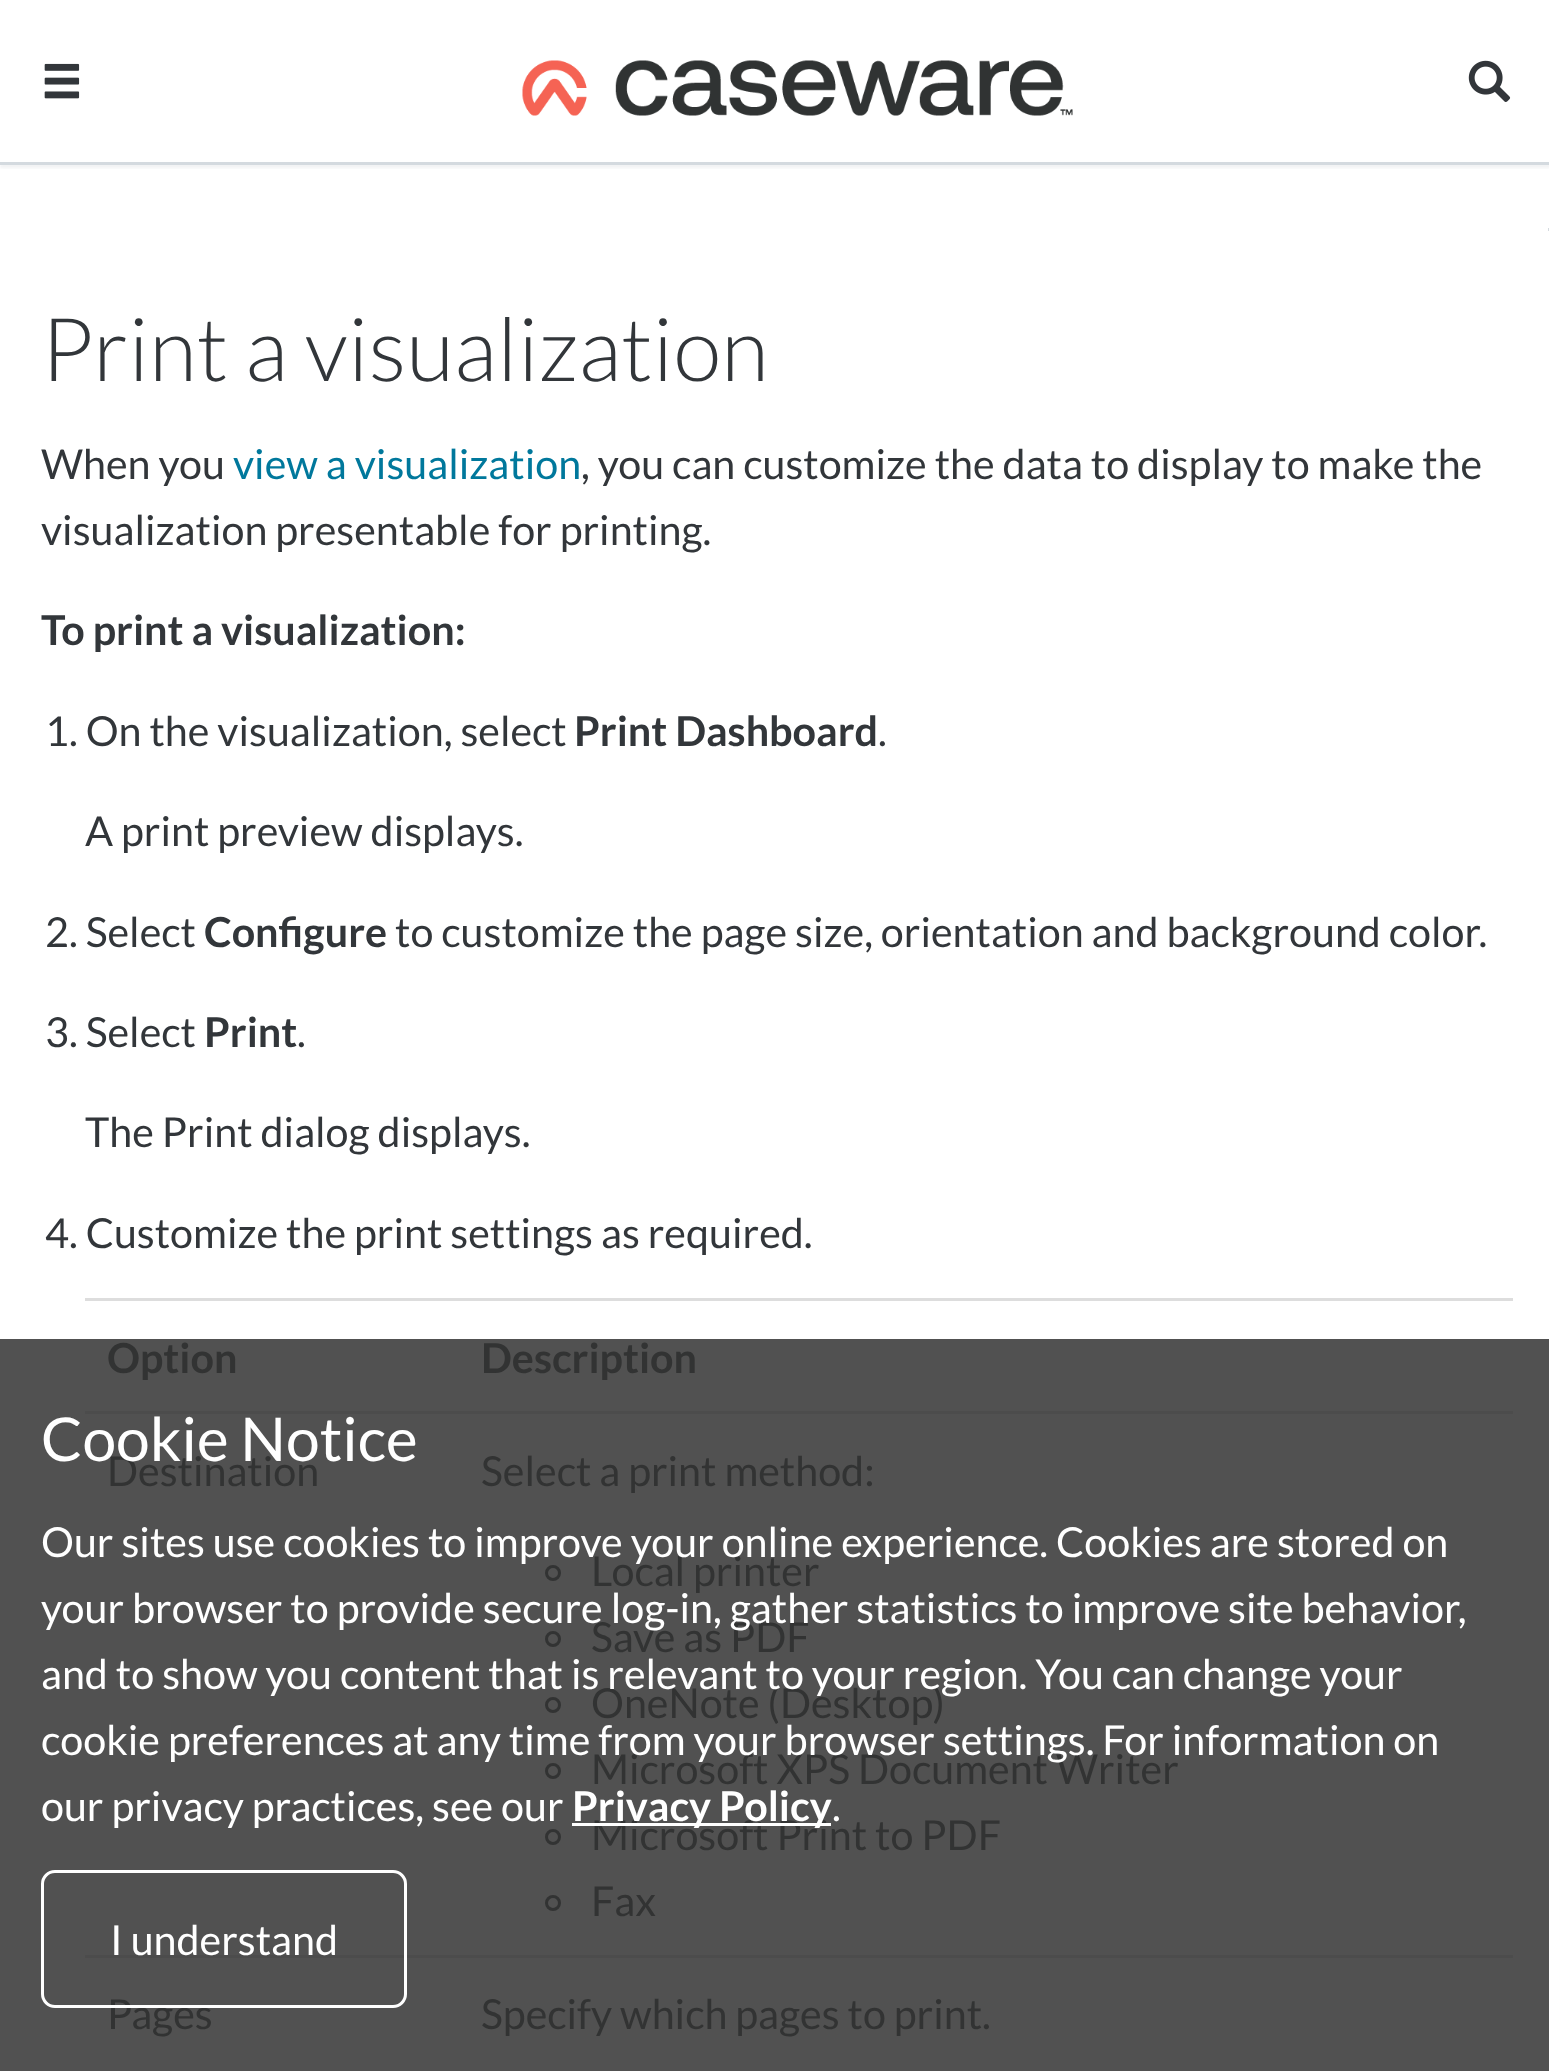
async function draw(canvas) {
	canvas.width = 1549;
	canvas.height = 2071;
	const c = canvas.getContext('2d');
	c.miterLimit = 4;
	c.fontKerning = 'normal';
	async function loadImage(src) {
		const img = new Image();
		img.src = src;
		await img.decode();
		return img;
	}

	c.fillStyle = '#fff';
	c.fillRect(0, 0, 1549, 2071);
	c.fillStyle = '#515151';
	c.fillRect(0, 1339, 1549, 732);
	c.save();
	c.beginPath();
	c.rect(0, 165, 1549, 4);
	c.clip();
	c.fillStyle = '#74818d1a';
	c.filter = 'blur(1.5px)';
	c.beginPath();
	c.rect(0, 3, 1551, 165);
	c.fill();
	c.filter = 'none';
	c.restore();
	c.fillStyle = '#d4dadf';
	c.fillRect(0, 162, 1549, 3);
	c.drawImage(await loadImage('img1.png'), 44, 63, 36, 36);
	c.drawImage(await loadImage('img2.png'), 522, 60, 551, 56);
	c.drawImage(await loadImage('img3.png'), 1468, 60, 43, 42);
	c.fillRect(1548, 228, 1, 3);
	c.font = '300 88px Lato';
	c.fillStyle = '#32363a';
	c.fillText('Print a visualization', 41, 381);
	c.font = '41.25px Lato';
	c.fillText('When you', 41, 479);
	c.fillStyle = '#00789c';
	c.fillText('view a visualization', 233, 479);
	c.fillStyle = '#32363a';
	c.fillText(', you can customize the data to display to make the', 581, 479);
	c.fillText('visualization presentable for printing.', 41, 545);
	c.font = 'bold 41.25px Lato';
	c.fillText('To print a visualization:', 41, 645);
	c.font = '41.25px Lato';
	c.fillText('1. On the visualization, select', 45, 746);
	c.font = 'bold 41.25px Lato';
	c.fillText('Print Dashboard', 574, 746);
	c.font = '41.25px Lato';
	for (const [text, x, y] of [
		['.', 878, 746],
		['A print preview displays.', 85, 846],
		['2. Select', 45, 947],
	]) {
		c.fillText(text, x, y);
	}
	c.font = 'bold 41.25px Lato';
	c.fillText('Configure', 204, 947);
	c.font = '41.25px Lato';
	c.fillText('to customize the page size, orientation and background color.', 395, 947);
	c.fillText('3. Select', 45, 1047);
	c.font = 'bold 41.25px Lato';
	c.fillText('Print', 204, 1047);
	c.font = '41.25px Lato';
	for (const [text, x, y] of [
		['.', 297, 1047],
		['The Print dialog displays.', 85, 1147],
		['4. Customize the print settings as required.', 45, 1248],
	]) {
		c.fillText(text, x, y);
	}
	c.font = 'bold 41.25px Lato';
	c.fillStyle = '#323333';
	c.fillText('Option', 107, 1373);
	c.fillStyle = '#ddd';
	c.fillRect(85, 1298, 1428, 3);
	c.fillStyle = '#323333';
	c.fillText('Description', 481, 1373);
	c.font = '41.25px Lato';
	c.fillText('Destination', 107, 1486);
	c.fillStyle = '#4c4c4c';
	c.fillRect(85, 1411, 1428, 3);
	c.fillStyle = '#323333';
	c.fillText('Select a print method:', 481, 1486);
	c.beginPath();
	c.arc(553, 1573, 6.5, 0, 2 * Math.PI);
	c.strokeStyle = '#323333';
	c.lineWidth = 3;
	c.stroke();
	c.fillText('Local printer', 591, 1586);
	c.beginPath();
	c.arc(553, 1639, 6.5, 0, 2 * Math.PI);
	c.stroke();
	c.fillText('Save as PDF', 591, 1652);
	c.beginPath();
	c.arc(553, 1705, 6.5, 0, 2 * Math.PI);
	c.stroke();
	c.fillText('OneNote (Desktop)', 591, 1718);
	c.beginPath();
	c.arc(553, 1771, 6.5, 0, 2 * Math.PI);
	c.stroke();
	c.fillText('Microsoft XPS Document Writer', 591, 1784);
	c.beginPath();
	c.arc(553, 1837, 6.5, 0, 2 * Math.PI);
	c.stroke();
	c.fillText('Microsoft Print to PDF', 591, 1850);
	c.beginPath();
	c.arc(553, 1903, 6.5, 0, 2 * Math.PI);
	c.stroke();
	c.fillText('Fax', 591, 1916);
	c.fillText('Pages', 107, 2029);
	c.fillStyle = '#4c4c4c';
	c.fillRect(85, 1955, 1428, 3);
	c.fillStyle = '#323333';
	c.fillText('Specify which pages to print.', 481, 2029);
	c.font = '60.5px Lato';
	c.fillStyle = '#fff';
	c.fillText('Cookie Notice', 41, 1461);
	c.font = '41.25px Lato';
	for (const [text, x, y] of [
		['Our sites use cookies to improve your online experience. Cookies are stored on', 41, 1557],
		['your browser to provide secure log-in, gather statistics to improve site behavior,', 41, 1623],
		['and to show you content that is relevant to your region. You can change your', 41, 1689],
		['cookie preferences at any time from your browser settings. For information on', 41, 1755],
		['our privacy practices, see our', 41, 1821],
	]) {
		c.fillText(text, x, y);
	}
	c.fillRect(572, 1823, 259, 3);
	c.font = 'bold 41.25px Lato';
	c.fillText('Privacy Policy', 572, 1821);
	c.font = '41.25px Lato';
	c.fillText('.', 832, 1821);
	c.beginPath();
	c.roundRect(42.5, 1871.5, 363, 135, 12.5);
	c.strokeStyle = '#fff';
	c.stroke();
	c.fillText('I understand', 110, 1955);
}

draw(document.querySelector('canvas'));
